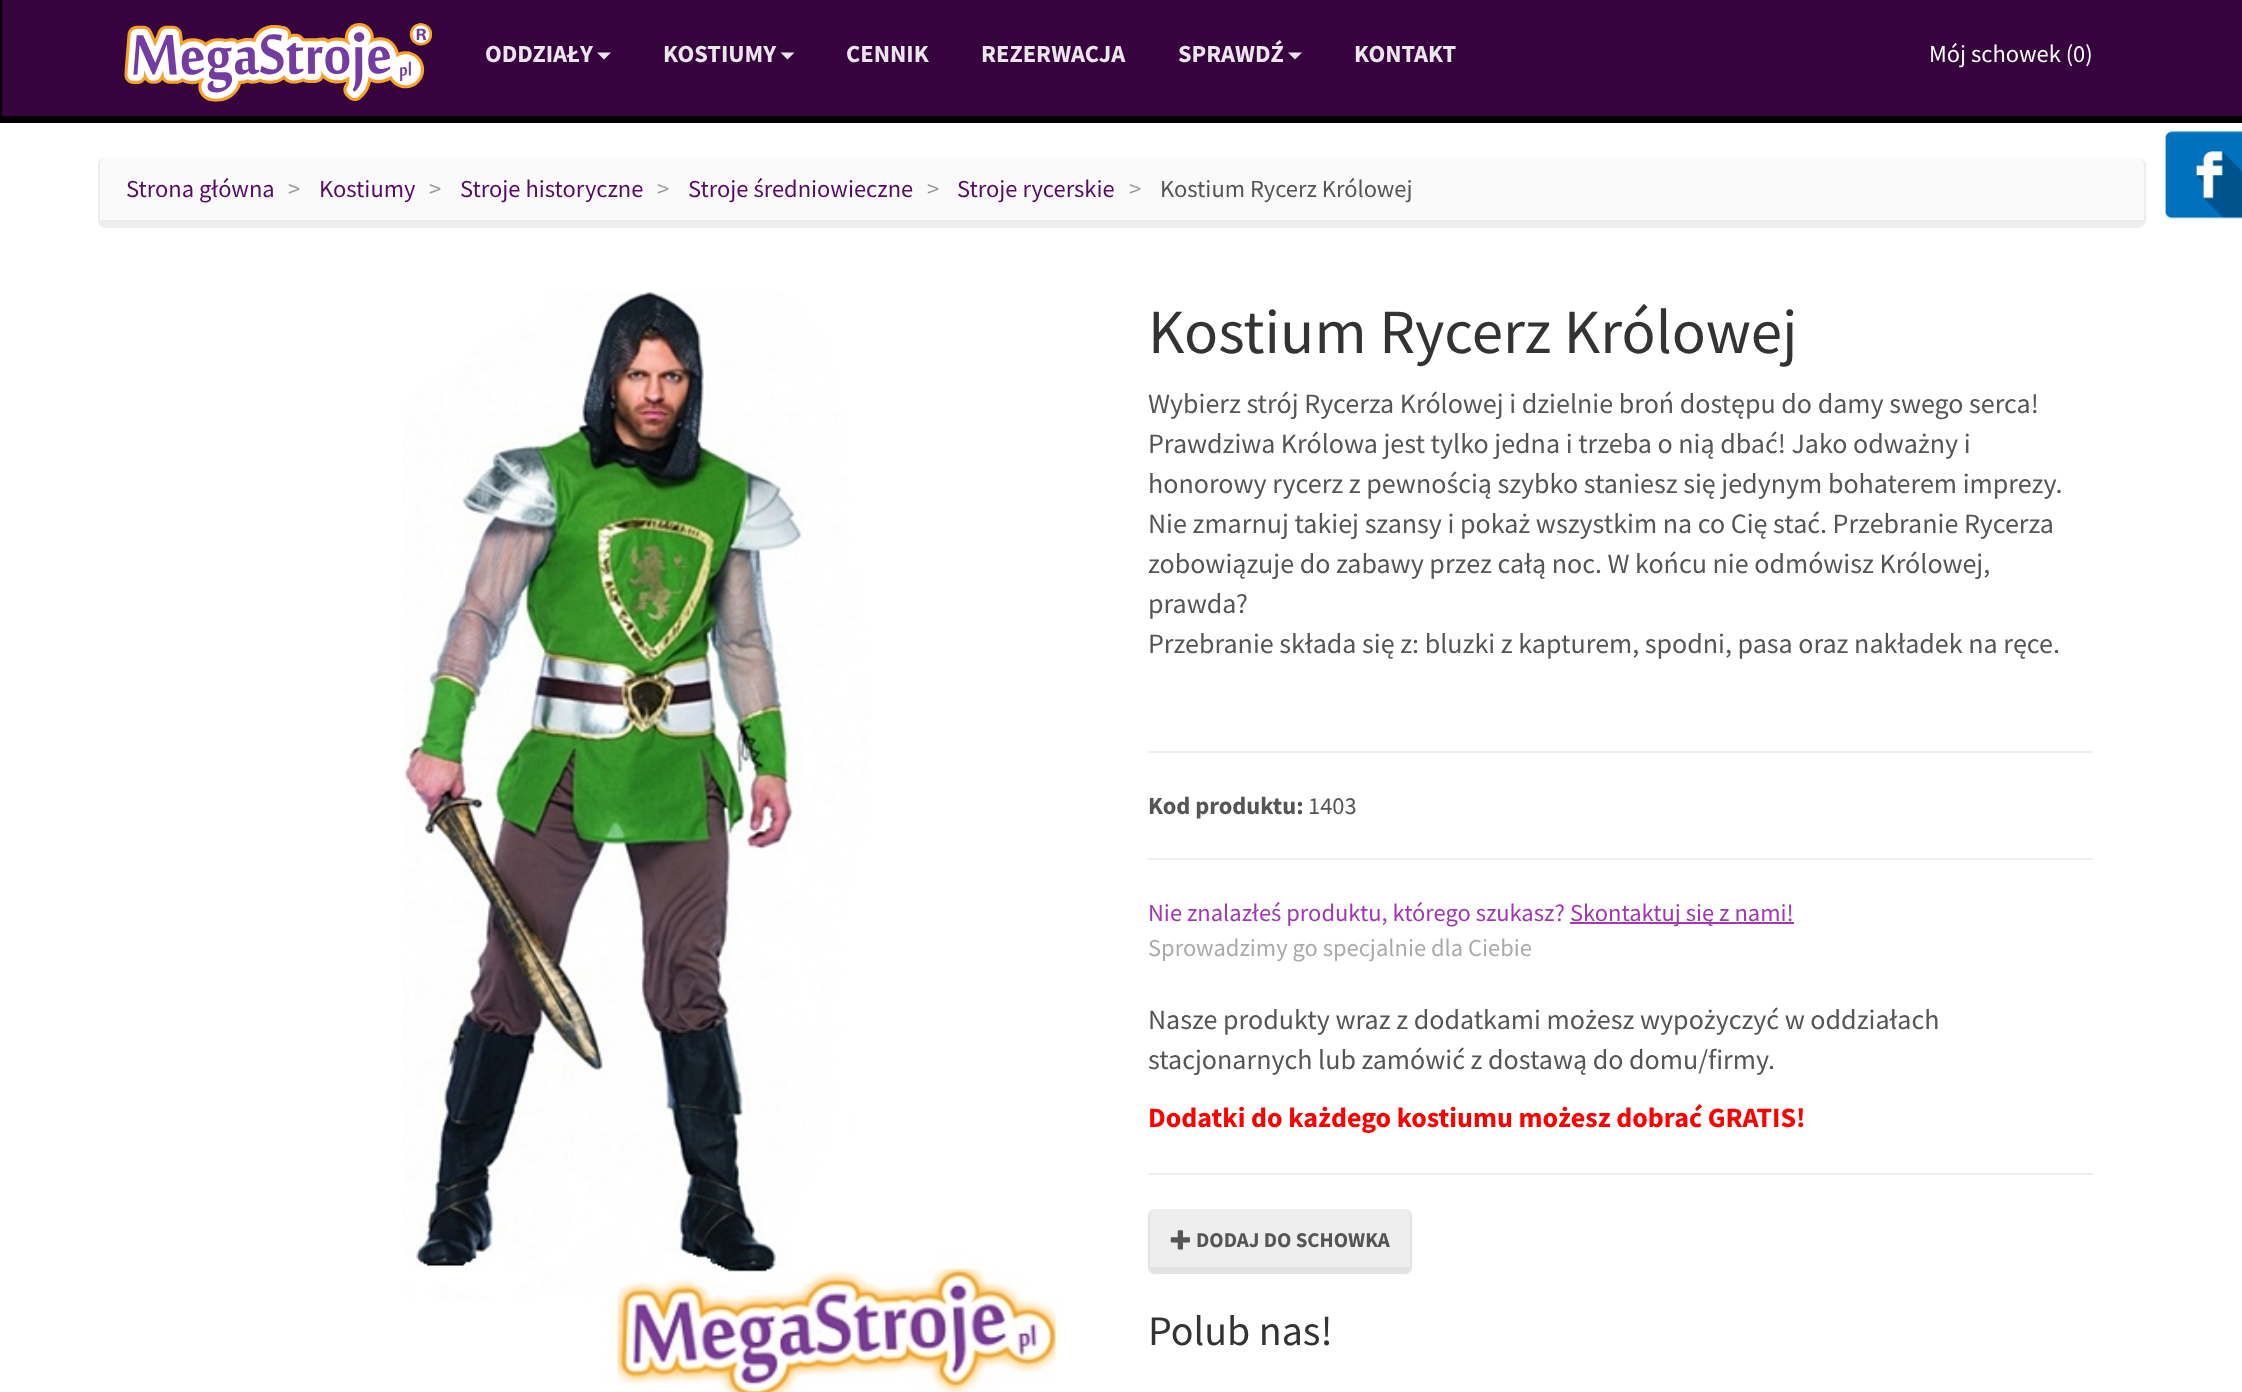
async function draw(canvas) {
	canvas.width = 2242;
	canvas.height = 1392;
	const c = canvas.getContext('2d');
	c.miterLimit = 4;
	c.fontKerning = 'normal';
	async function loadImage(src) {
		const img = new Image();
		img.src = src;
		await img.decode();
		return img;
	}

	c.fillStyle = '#fff';
	c.fillRect(0, 0, 2242, 1392);
	for (const [x, y, w, h, color] of [
		[2, 0, 2240, 116, '#37033f'],
		[0, 116, 2242, 7, '#000'],
		[0, 0, 2, 123, '#000'],
	]) {
		c.fillStyle = color;
		c.fillRect(x, y, w, h);
	}
	c.drawImage(await loadImage('img1.png'), 124, 23, 308, 79);
	c.font = 'bold 24.5px Source Sans Pro';
	c.fillStyle = '#ebe6ec';
	c.fillText('ODDZIAŁY', 485, 62);
	c.beginPath();
	c.moveTo(597, 52.5);
	c.lineTo(611, 52.5);
	c.lineTo(604, 59.5);
	c.closePath();
	c.fill();
	c.fillText('KOSTIUMY', 663, 62);
	c.beginPath();
	c.moveTo(780.5, 52.5);
	c.lineTo(794.5, 52.5);
	c.lineTo(787.5, 59.5);
	c.closePath();
	c.fill();
	for (const [text, x, y] of [
		['CENNIK', 846, 62],
		['REZERWACJA', 981, 62],
		['SPRAWDŹ', 1178, 62],
	]) {
		c.fillText(text, x, y);
	}
	c.beginPath();
	c.moveTo(1288, 52.5);
	c.lineTo(1302, 52.5);
	c.lineTo(1295, 59.5);
	c.closePath();
	c.fill();
	c.fillText('KONTAKT', 1354, 62);
	c.font = '24.5px Source Sans Pro';
	c.fillStyle = '#fff';
	c.fillText('Mój schowek (0)', 1929, 62);
	c.fillStyle = '#fafafa';
	c.beginPath();
	c.moveTo(105, 158);
	c.lineTo(2138, 158);
	c.bezierCurveTo(2141, 158, 2144, 161, 2144, 164);
	c.lineTo(2144, 220);
	c.lineTo(100, 220);
	c.lineTo(100, 164);
	c.bezierCurveTo(100, 161, 102, 158, 105, 158);
	c.closePath();
	c.fill();
	c.fillStyle = '#ededed';
	c.beginPath();
	c.moveTo(105, 158);
	c.lineTo(2138, 158);
	c.bezierCurveTo(2142, 158, 2146, 161, 2146, 164);
	c.lineTo(2146, 220);
	c.bezierCurveTo(2146, 224, 2142, 228, 2138, 228);
	c.lineTo(105, 228);
	c.bezierCurveTo(101, 228, 98, 224, 98, 220);
	c.lineTo(98, 164);
	c.bezierCurveTo(98, 161, 101, 158, 105, 158);
	c.closePath();
	c.moveTo(105, 158);
	c.lineTo(2138, 158);
	c.bezierCurveTo(2141, 158, 2144, 161, 2144, 164);
	c.lineTo(2144, 220);
	c.lineTo(100, 220);
	c.lineTo(100, 164);
	c.bezierCurveTo(100, 161, 102, 158, 105, 158);
	c.closePath();
	c.fill('evenodd');
	c.fillStyle = '#570c64';
	c.fillText('Strona główna', 126, 197);
	c.fillStyle = '#999';
	c.fillText('>', 288, 197);
	c.fillStyle = '#570c64';
	c.fillText('Kostiumy', 319, 197);
	c.fillStyle = '#999';
	c.fillText('>', 429, 197);
	c.fillStyle = '#570c64';
	c.fillText('Stroje historyczne', 460, 197);
	c.fillStyle = '#999';
	c.fillText('>', 657, 197);
	c.fillStyle = '#570c64';
	c.fillText('Stroje średniowieczne', 688, 197);
	c.fillStyle = '#999';
	c.fillText('>', 927, 197);
	c.fillStyle = '#570c64';
	c.fillText('Stroje rycerskie', 957, 197);
	c.fillStyle = '#999';
	c.fillText('>', 1129, 197);
	c.fillStyle = '#555';
	c.fillText('Kostium Rycerz Królowej', 1160, 197);
	c.drawImage(await loadImage('img2.png'), 2165, 131, 77, 88);
	c.drawImage(await loadImage('img3.png'), 403, 292, 657, 1100);
	c.font = '63px Source Sans Pro';
	c.fillStyle = '#333';
	c.fillText('Kostium Rycerz Królowej', 1148, 353);
	c.font = '28px Source Sans Pro';
	c.fillStyle = '#555';
	for (const [text, x, y] of [
		['Wybierz strój Rycerza Królowej i dzielnie broń dostępu do damy swego serca!', 1148, 413],
		['Prawdziwa Królowa jest tylko jedna i trzeba o nią dbać! Jako odważny i', 1148, 453],
		['honorowy rycerz z pewnością szybko staniesz się jedynym bohaterem imprezy.', 1148, 493],
		['Nie zmarnuj takiej szansy i pokaż wszystkim na co Cię stać. Przebranie Rycerza', 1148, 533],
		['zobowiązuje do zabawy przez całą noc. W końcu nie odmówisz Królowej,', 1148, 573],
		['prawda?', 1148, 613],
		['Przebranie składa się z: bluzki z kapturem, spodni, pasa oraz nakładek na ręce.', 1148, 653],
	]) {
		c.fillText(text, x, y);
	}
	c.fillStyle = '#eee';
	c.fillRect(1148, 751, 945, 2);
	c.font = 'bold 24.5px Source Sans Pro';
	c.fillStyle = '#555';
	c.fillText('Kod produktu:', 1148, 814);
	c.font = '24.5px Source Sans Pro';
	c.fillText('1403', 1308, 814);
	c.fillStyle = '#eee';
	c.fillRect(1148, 858, 945, 2);
	c.fillStyle = '#a039b1';
	c.fillText('Nie znalazłeś produktu, którego szukasz?', 1148, 921);
	c.fillRect(1570, 922, 224, 2);
	c.fillText('Skontaktuj się z nami!', 1570, 921);
	c.fillStyle = '#aaa';
	c.fillText('Sprowadzimy go specjalnie dla Ciebie', 1148, 956);
	c.font = '28px Source Sans Pro';
	c.fillStyle = '#555';
	c.fillText('Nasze produkty wraz z dodatkami możesz wypożyczyć w oddziałach', 1148, 1029);
	c.fillText('stacjonarnych lub zamówić z dostawą do domu/firmy.', 1148, 1069);
	c.font = 'bold 28px Source Sans Pro';
	c.fillStyle = '#f00';
	c.fillText('Dodatki do każdego kostiumu możesz dobrać GRATIS!', 1148, 1127);
	c.fillStyle = '#eee';
	c.fillRect(1148, 1173, 945, 2);
	c.beginPath();
	c.moveTo(1155, 1209);
	c.lineTo(1405, 1209);
	c.bezierCurveTo(1408, 1209, 1410, 1212, 1410, 1216);
	c.lineTo(1410, 1267);
	c.lineTo(1150, 1267);
	c.lineTo(1150, 1216);
	c.bezierCurveTo(1150, 1212, 1152, 1209, 1155, 1209);
	c.closePath();
	c.fill();
	c.fillStyle = '#e2e2e2';
	c.beginPath();
	c.moveTo(1155, 1209);
	c.lineTo(1405, 1209);
	c.bezierCurveTo(1409, 1209, 1412, 1212, 1412, 1216);
	c.lineTo(1412, 1267);
	c.bezierCurveTo(1412, 1271, 1409, 1274, 1405, 1274);
	c.lineTo(1155, 1274);
	c.bezierCurveTo(1151, 1274, 1148, 1271, 1148, 1267);
	c.lineTo(1148, 1216);
	c.bezierCurveTo(1148, 1212, 1151, 1209, 1155, 1209);
	c.closePath();
	c.moveTo(1155, 1209);
	c.lineTo(1405, 1209);
	c.bezierCurveTo(1408, 1209, 1410, 1212, 1410, 1216);
	c.lineTo(1410, 1267);
	c.lineTo(1150, 1267);
	c.lineTo(1150, 1216);
	c.bezierCurveTo(1150, 1212, 1152, 1209, 1155, 1209);
	c.closePath();
	c.fill('evenodd');
	c.drawImage(await loadImage('img4.png'), 1170, 1230, 20, 20);
	c.font = 'bold 21px Source Sans Pro';
	c.fillStyle = '#555';
	c.fillText('DODAJ DO SCHOWKA', 1196, 1247);
	c.font = '42px Source Sans Pro';
	c.fillStyle = '#333';
	c.fillText('Polub nas!', 1148, 1345);
}

draw(document.querySelector('canvas'));
